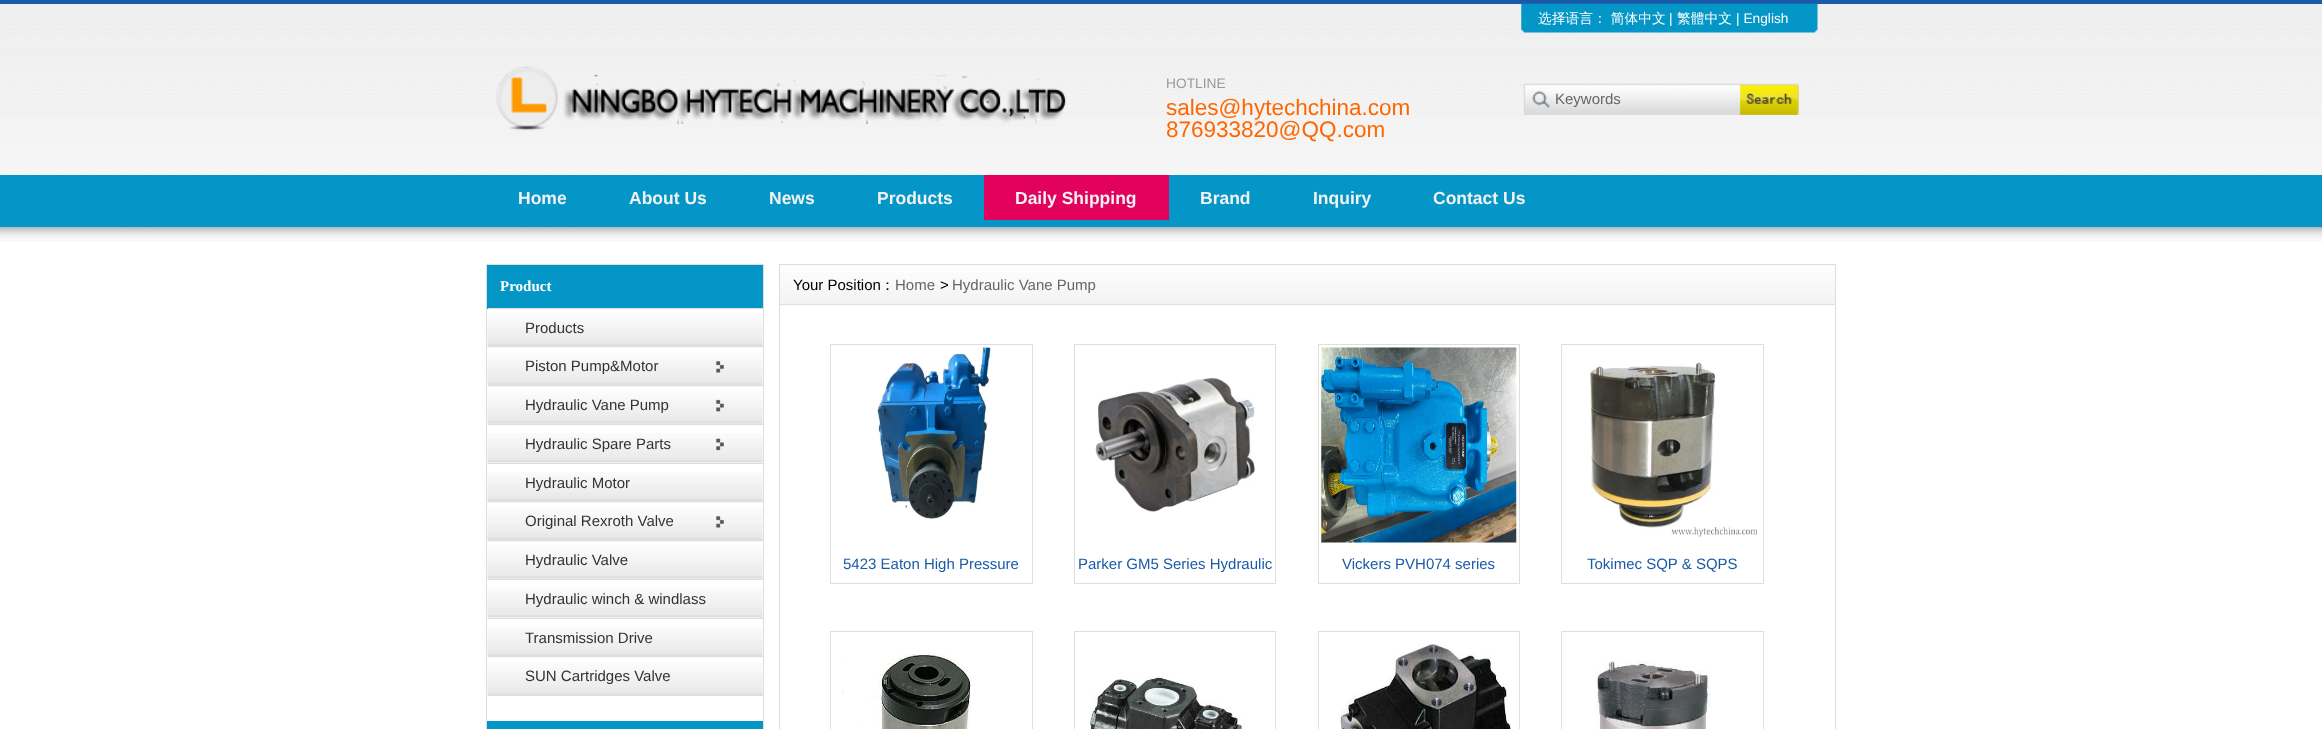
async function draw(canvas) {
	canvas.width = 2322;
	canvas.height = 729;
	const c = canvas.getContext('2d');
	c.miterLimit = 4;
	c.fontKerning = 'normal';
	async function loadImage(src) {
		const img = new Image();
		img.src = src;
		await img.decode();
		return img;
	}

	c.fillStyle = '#fff';
	c.fillRect(0, 0, 2322, 729);
	c.drawImage(await loadImage('img1.png'), 0, 4, 2322, 238);
	c.fillStyle = '#1b5aa9';
	c.fillRect(0, 0, 2322, 4);
	c.drawImage(await loadImage('img2.png'), 1521, 3, 297, 30);
	c.font = '500 13.75px WenQuanYi Zen Hei';
	c.fillStyle = '#fff';
	c.fillText('选择语言： 简体中文', 1538, 23);
	c.font = '13.75px Liberation Sans';
	c.fillText('|', 1669, 23);
	c.font = '500 13.75px WenQuanYi Zen Hei';
	c.fillText('繁體中文', 1677, 23);
	c.font = '13.75px Liberation Sans';
	c.fillText('| English', 1736, 23);
	c.drawImage(await loadImage('img3.png'), 496, 66, 570, 65);
	c.fillStyle = '#999';
	c.fillText('HOTLINE', 1166, 88);
	c.font = '22.5px Liberation Sans';
	c.fillStyle = '#f60';
	c.fillText('sales@hytechchina.com', 1166, 115);
	c.fillText('876933820@QQ.com', 1166, 137);
	c.drawImage(await loadImage('img4.png'), 1523, 83, 276, 32);
	c.font = '15px Liberation Sans';
	c.fillStyle = '#666';
	c.fillText('Keywords', 1555, 104);
	c.fillStyle = '#0396c7';
	c.fillRect(0, 175, 2322, 52);
	c.font = 'bold 17.5px Liberation Sans';
	c.fillStyle = '#f2f2f2';
	for (const [text, x, y] of [
		['Home', 518, 204],
		['About Us', 629, 204],
		['News', 769, 204],
		['Products', 877, 204],
	]) {
		c.fillText(text, x, y);
	}
	c.fillStyle = '#e2025e';
	c.fillRect(984, 175, 185, 45);
	c.fillStyle = '#f2f2f2';
	for (const [text, x, y] of [
		['Daily Shipping', 1015, 204],
		['Brand', 1200, 204],
		['Inquiry', 1313, 204],
		['Contact Us', 1433, 204],
	]) {
		c.fillText(text, x, y);
	}
	c.strokeStyle = '#ddd';
	c.strokeRect(486.5, 264.5, 277, 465);
	c.fillStyle = '#0396c7';
	c.fillRect(487, 265, 276, 44);
	c.fillStyle = '#ddd';
	c.fillRect(488, 308, 275, 1);
	c.font = 'bold 15px Liberation Serif';
	c.fillStyle = '#fff';
	c.fillText('Product', 500, 291);
	c.drawImage(await loadImage('img5.png'), 487, 308, 276, 39);
	c.fillStyle = '#ddd';
	c.fillRect(488, 346, 275, 1);
	c.font = '15px Liberation Sans';
	c.fillStyle = '#333';
	c.fillText('Products', 525, 333);
	c.drawImage(await loadImage('img6.png'), 487, 347, 276, 38);
	c.drawImage(await loadImage('img7.png'), 716, 361, 8, 12);
	c.fillStyle = '#ddd';
	c.fillRect(488, 385, 275, 1);
	c.fillStyle = '#333';
	c.fillText('Piston Pump&Motor', 525, 371);
	c.drawImage(await loadImage('img8.png'), 487, 386, 276, 38);
	c.drawImage(await loadImage('img9.png'), 716, 399, 8, 13);
	c.fillStyle = '#ddd';
	c.fillRect(488, 424, 275, 1);
	c.fillStyle = '#333';
	c.fillText('Hydraulic Vane Pump', 525, 410);
	c.drawImage(await loadImage('img10.png'), 487, 433, 276, 30);
	c.drawImage(await loadImage('img11.png'), 716, 438, 8, 13);
	c.fillStyle = '#ddd';
	c.fillRect(488, 463, 275, 1);
	c.fillStyle = '#333';
	c.fillText('Hydraulic Spare Parts', 525, 449);
	c.drawImage(await loadImage('img12.png'), 487, 472, 276, 30);
	c.fillStyle = '#ddd';
	c.fillRect(488, 501, 275, 1);
	c.fillStyle = '#333';
	c.fillText('Hydraulic Motor', 525, 488);
	c.drawImage(await loadImage('img6.png'), 487, 502, 276, 38);
	c.drawImage(await loadImage('img7.png'), 716, 516, 8, 12);
	c.fillStyle = '#ddd';
	c.fillRect(488, 540, 275, 1);
	c.fillStyle = '#333';
	c.fillText('Original Rexroth Valve', 525, 526);
	c.drawImage(await loadImage('img8.png'), 487, 541, 276, 38);
	c.fillStyle = '#ddd';
	c.fillRect(488, 579, 275, 1);
	c.fillStyle = '#333';
	c.fillText('Hydraulic Valve', 525, 565);
	c.drawImage(await loadImage('img10.png'), 487, 588, 276, 30);
	c.fillStyle = '#ddd';
	c.fillRect(488, 618, 275, 1);
	c.fillStyle = '#333';
	c.fillText('Hydraulic winch & windlass', 525, 604);
	c.drawImage(await loadImage('img12.png'), 487, 627, 276, 30);
	c.fillStyle = '#ddd';
	c.fillRect(488, 656, 275, 1);
	c.fillStyle = '#333';
	c.fillText('Transmission Drive', 525, 643);
	c.drawImage(await loadImage('img6.png'), 487, 657, 276, 38);
	c.fillStyle = '#ddd';
	c.fillRect(488, 695, 275, 1);
	c.fillStyle = '#333';
	c.fillText('SUN Cartridges Valve', 525, 681);
	c.fillStyle = '#0396c7';
	c.fillRect(487, 721, 276, 8);
	c.strokeRect(779.5, 264.5, 1056, 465);
	c.drawImage(await loadImage('img13.png'), 780, 265, 1055, 41);
	c.fillStyle = '#000';
	c.fillText('Your Position', 793, 290);
	c.font = '500 15px WenQuanYi Zen Hei';
	c.fillText('：', 880, 290);
	c.font = '15px Liberation Sans';
	c.fillStyle = '#666';
	c.fillText('Home', 895, 290);
	c.fillStyle = '#000';
	c.fillText('>', 940, 290);
	c.fillStyle = '#666';
	c.fillText('Hydraulic Vane Pump', 952, 290);
	c.strokeStyle = '#dededc';
	c.strokeRect(830.5, 344.5, 202, 239);
	c.drawImage(await loadImage('img14.png'), 877, 347, 114, 173);
	c.fillStyle = '#1b5aa9';
	c.fillText('5423 Eaton High Pressure', 843, 569);
	c.strokeRect(1074.5, 344.5, 201, 239);
	c.drawImage(await loadImage('img15.png'), 1095, 377, 161, 135);
	c.fillText('Parker GM5 Series Hydraulic', 1078, 569);
	c.strokeRect(1318.5, 344.5, 201, 239);
	c.drawImage(await loadImage('img16.png'), 1321, 347, 196, 196);
	c.fillText('Vickers PVH074 series', 1342, 569);
	c.strokeRect(1561.5, 344.5, 202, 239);
	c.drawImage(await loadImage('img17.png'), 1589, 362, 169, 175);
	c.fillText('Tokimec SQP & SQPS', 1587, 569);
	c.strokeRect(830.5, 631.5, 202, 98);
	c.drawImage(await loadImage('img18.png'), 841, 653, 130, 76);
	c.strokeRect(1074.5, 631.5, 201, 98);
	c.drawImage(await loadImage('img19.png'), 1090, 676, 155, 53);
	c.strokeRect(1318.5, 631.5, 201, 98);
	c.drawImage(await loadImage('img20.png'), 1339, 644, 173, 85);
	c.strokeRect(1561.5, 631.5, 202, 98);
	c.drawImage(await loadImage('img21.png'), 1595, 661, 116, 68);
}

draw(document.querySelector('canvas'));
